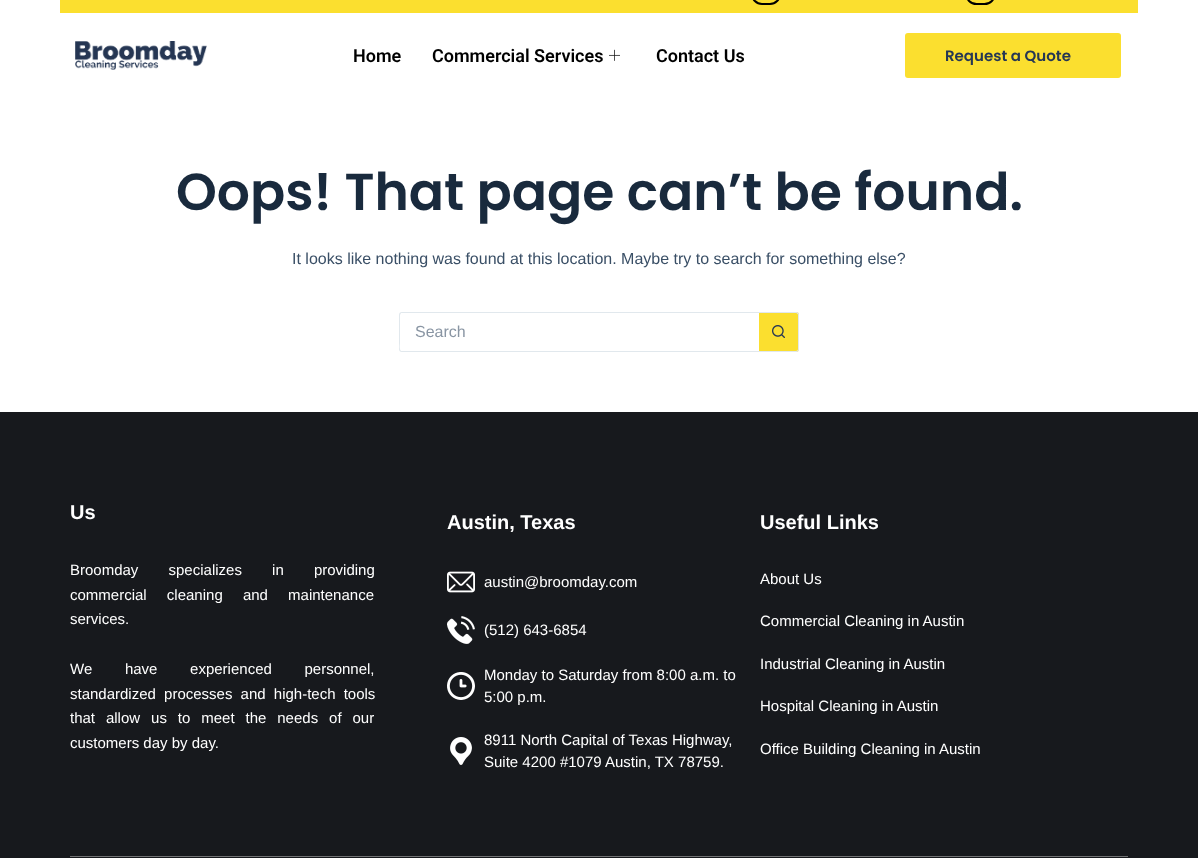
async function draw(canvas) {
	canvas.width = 1198;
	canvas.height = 858;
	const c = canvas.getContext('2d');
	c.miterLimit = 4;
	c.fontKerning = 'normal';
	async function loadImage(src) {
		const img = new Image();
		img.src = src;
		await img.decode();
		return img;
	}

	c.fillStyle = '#fff';
	c.fillRect(0, 0, 1198, 858);
	c.fillStyle = '#fbdf2f';
	c.fillRect(60, 0, 1078, 13);
	c.beginPath();
	c.roundRect(752, -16, 28, 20, 14);
	c.strokeStyle = '#000';
	c.lineWidth = 2;
	c.stroke();
	c.beginPath();
	c.roundRect(966, -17, 29, 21, 14.5);
	c.stroke();
	c.drawImage(await loadImage('img1.png'), 75, 41, 132, 29);
	c.font = '600 18px Roboto';
	c.fillStyle = '#000';
	c.fillText('Home', 353, 62);
	c.fillText('Commercial Services', 432, 62);
	c.drawImage(await loadImage('img2.png'), 609, 49, 11, 12);
	c.fillText('Contact Us', 656, 62);
	c.fillStyle = '#fbdf2f';
	c.beginPath();
	c.roundRect(905, 33, 216, 45, 3);
	c.fill();
	c.font = '600 15px Poppins';
	c.fillStyle = '#263754';
	c.fillText('Request a Quote', 945, 61);
	c.font = '600 52px Poppins';
	c.fillStyle = '#192a3d';
	c.fillText('Oops! That page can’t be found.', 176, 210);
	c.font = '16px Liberation Sans';
	c.fillStyle = '#3a4f66';
	c.fillText('It looks like nothing was found at this location. Maybe try to search for something else?', 292, 264);
	c.fillStyle = '#e1e8ed';
	c.beginPath();
	c.moveTo(402, 312);
	c.lineTo(759, 312);
	c.lineTo(759, 352);
	c.lineTo(402, 352);
	c.bezierCurveTo(400, 352, 399, 351, 399, 349);
	c.lineTo(399, 315);
	c.bezierCurveTo(399, 313, 400, 312, 402, 312);
	c.closePath();
	c.moveTo(402, 313);
	c.lineTo(759, 313);
	c.lineTo(759, 351);
	c.lineTo(401, 351);
	c.bezierCurveTo(399, 349, 400, 344, 400, 343);
	c.lineTo(400, 315);
	c.lineTo(401, 313);
	c.closePath();
	c.fill('evenodd');
	c.fillStyle = '#8995a3';
	c.fillText('Search', 415, 337);
	c.fillStyle = '#fbdf2f';
	c.beginPath();
	c.roundRect(759, 312, 40, 40, [0, 3, 3, 0]);
	c.fill();
	c.fillStyle = '#e1e8ed';
	c.beginPath();
	c.moveTo(759, 312);
	c.lineTo(796, 312);
	c.bezierCurveTo(798, 312, 799, 313, 799, 315);
	c.lineTo(799, 349);
	c.bezierCurveTo(799, 351, 798, 352, 796, 352);
	c.lineTo(759, 352);
	c.closePath();
	c.moveTo(759, 313);
	c.lineTo(796, 313);
	c.bezierCurveTo(797, 313, 798, 314, 798, 315);
	c.lineTo(798, 349);
	c.bezierCurveTo(798, 350, 797, 351, 796, 351);
	c.lineTo(759, 351);
	c.closePath();
	c.fill('evenodd');
	c.drawImage(await loadImage('img3.png'), 772, 325, 13, 13);
	c.fillStyle = '#17191d';
	c.fillRect(0, 412, 1198, 446);
	c.font = 'bold 20px Liberation Sans';
	c.fillStyle = '#fff';
	c.fillText('Us', 70, 519);
	c.wordSpacing = '26px';
	c.font = '15px Liberation Sans';
	c.fillText('Broomday specializes in providing', 70, 575);
	c.wordSpacing = '16px';
	c.fillText('commercial cleaning and maintenance', 70, 600);
	c.wordSpacing = '0px';
	c.fillText('services.', 70, 624);
	c.wordSpacing = '28.5px';
	c.fillText('We have experienced personnel,', 70, 674);
	c.wordSpacing = '4px';
	c.fillText('standardized processes and high-tech tools', 70, 699);
	c.wordSpacing = '6.75px';
	c.fillText('that allow us to meet the needs of our', 70, 723);
	c.wordSpacing = '0px';
	c.fillText('customers day by day.', 70, 748);
	c.font = 'bold 20px Liberation Sans';
	c.fillText('Austin, Texas', 447, 529);
	c.drawImage(await loadImage('img4.png'), 447, 571, 28, 22);
	c.font = '15px Liberation Sans';
	c.fillText('austin@broomday.com', 484, 587);
	c.drawImage(await loadImage('img5.png'), 447, 616, 28, 28);
	c.fillText('(512) 643-6854', 484, 635);
	c.drawImage(await loadImage('img6.png'), 447, 672, 28, 28);
	c.fillText('Monday to Saturday from 8:00 a.m. to', 484, 680);
	c.fillText('5:00 p.m.', 484, 702);
	c.drawImage(await loadImage('img7.png'), 450, 737, 22, 28);
	c.fillText('8911 North Capital of Texas Highway,', 484, 745);
	c.fillText('Suite 4200 #1079 Austin, TX 78759.', 484, 767);
	c.font = 'bold 20px Liberation Sans';
	c.fillText('Useful Links', 760, 529);
	c.font = '15px Liberation Sans';
	for (const [text, x, y] of [
		['About Us', 760, 584],
		['Commercial Cleaning in Austin', 760, 626],
		['Industrial Cleaning in Austin', 760, 669],
		['Hospital Cleaning in Austin', 760, 711],
		['Office Building Cleaning in Austin', 760, 754],
	]) {
		c.fillText(text, x, y);
	}
	c.fillStyle = '#727375';
	c.fillRect(70, 856, 1058, 1);
}

draw(document.querySelector('canvas'));
